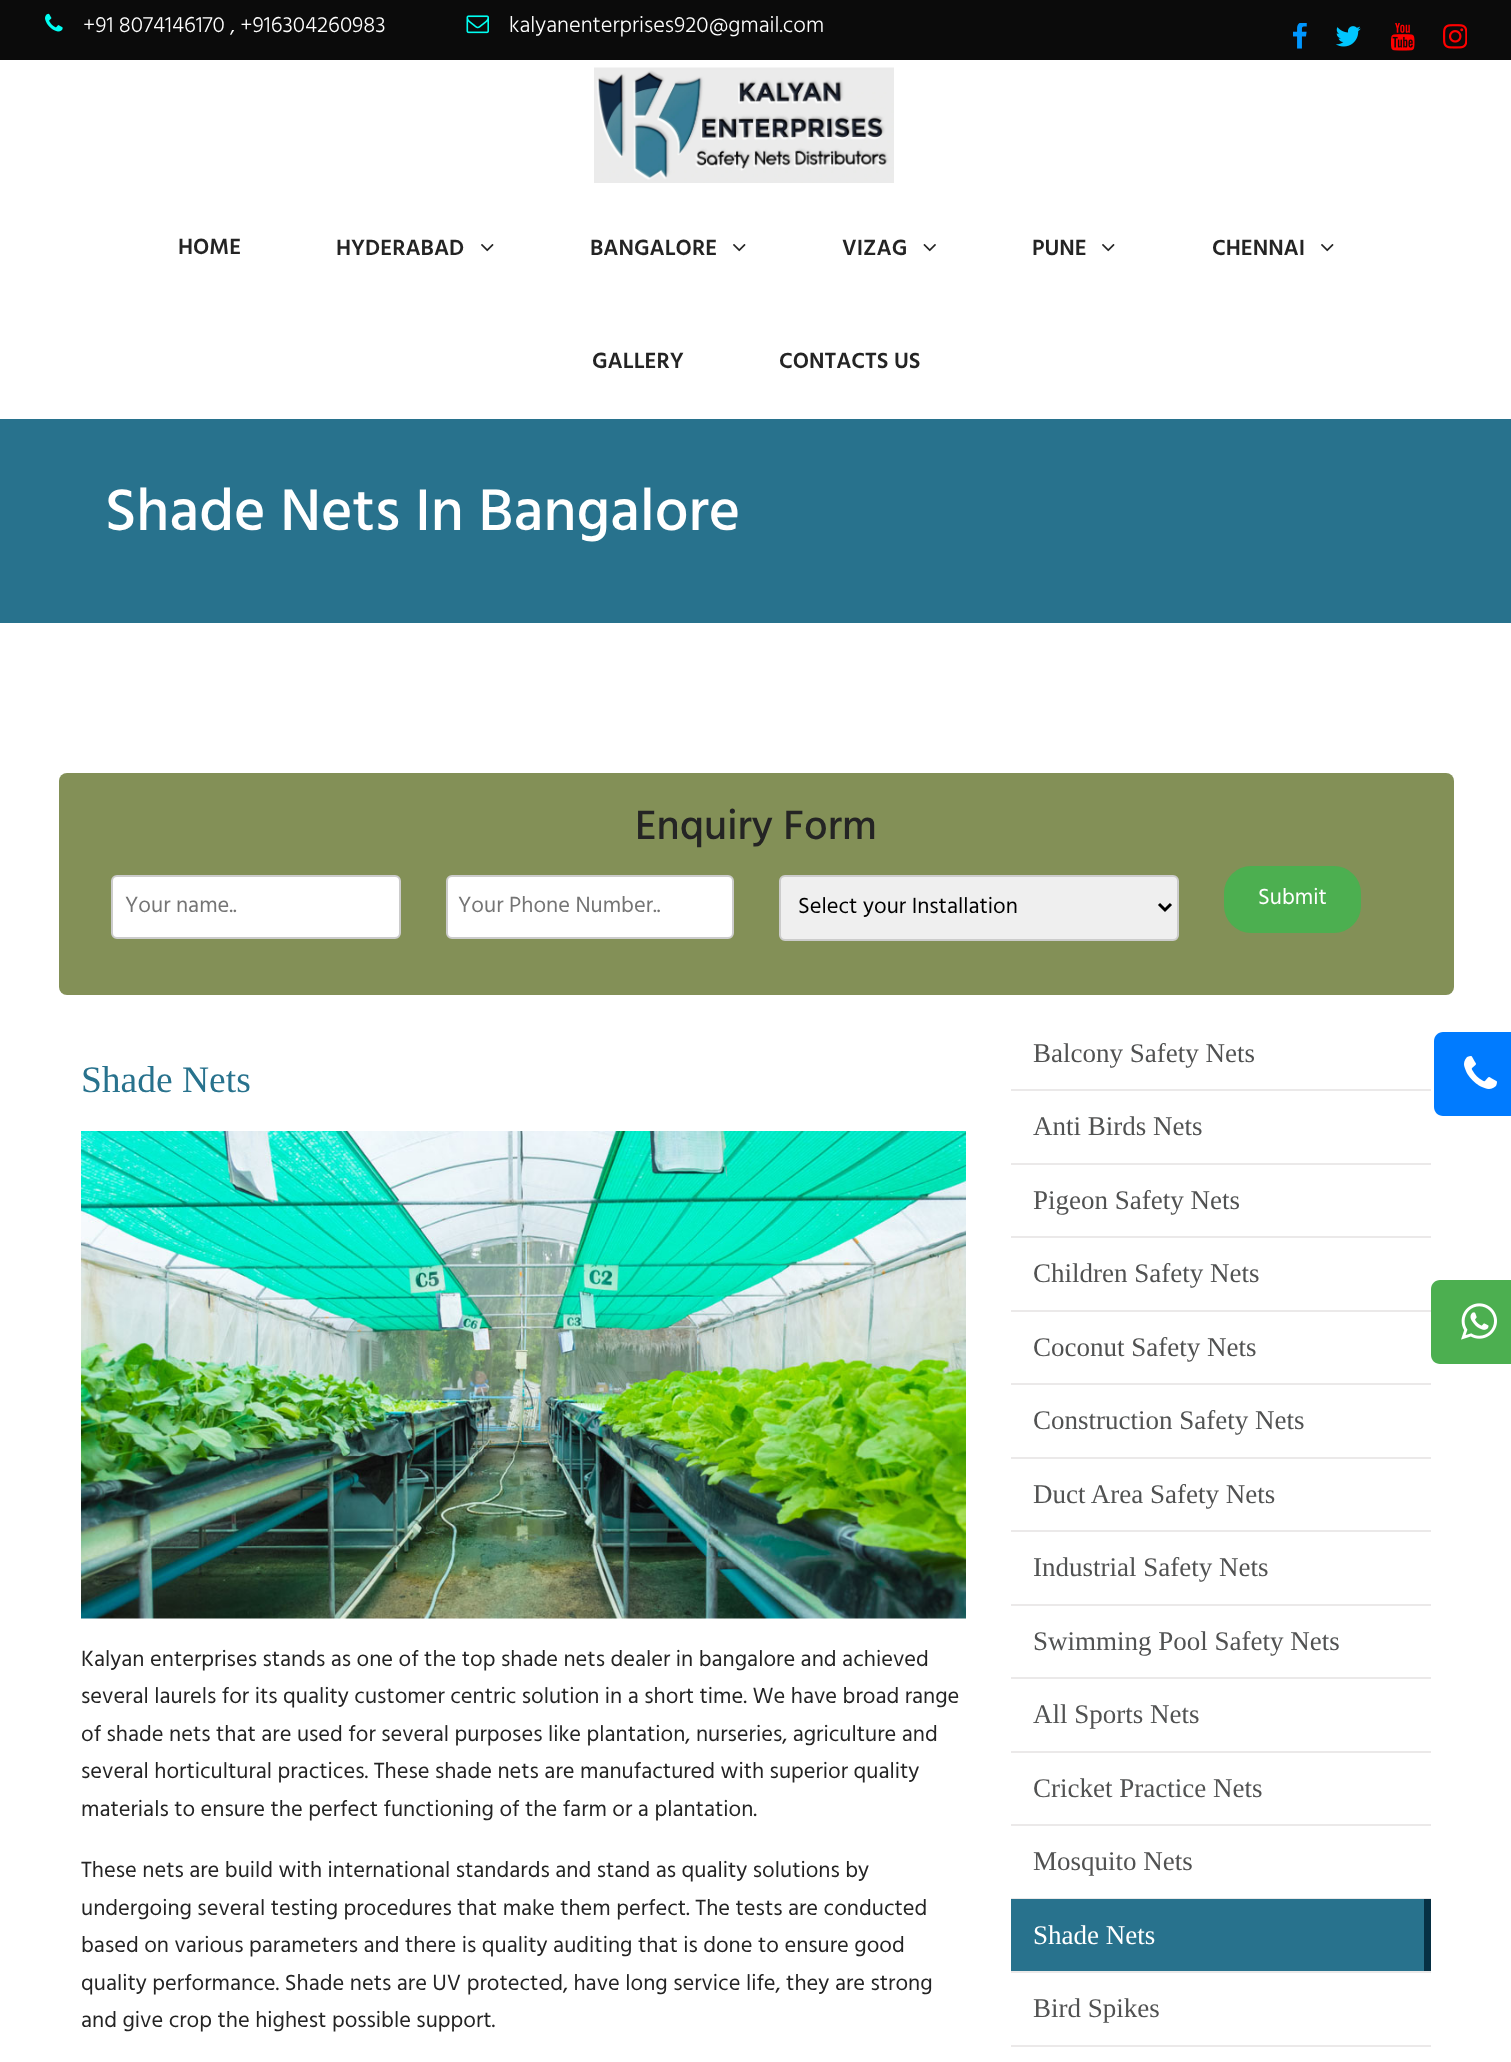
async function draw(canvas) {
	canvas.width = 1511;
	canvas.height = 2062;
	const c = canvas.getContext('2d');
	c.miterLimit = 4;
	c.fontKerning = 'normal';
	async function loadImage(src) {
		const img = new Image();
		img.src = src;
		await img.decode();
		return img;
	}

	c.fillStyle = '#fff';
	c.fillRect(0, 0, 1511, 2062);
	c.fillStyle = '#0b0b0b';
	c.fillRect(0, 0, 1511, 60);
	c.drawImage(await loadImage('img1.png'), 45, 13, 18, 19);
	c.font = '300 22.5px Hind';
	c.fillStyle = '#fff';
	c.fillText('+91 8074146170 , +916304260983', 83, 32);
	c.drawImage(await loadImage('img2.png'), 466, 15, 23, 19);
	c.fillText('kalyanenterprises920@gmail.com', 509, 32);
	c.drawImage(await loadImage('img3.png'), 1293, 23, 14, 26);
	c.drawImage(await loadImage('img4.png'), 1335, 26, 26, 21);
	c.drawImage(await loadImage('img5.png'), 1391, 23, 24, 28);
	c.drawImage(await loadImage('img6.png'), 1443, 24, 24, 25);
	c.drawImage(await loadImage('img7.png'), 594, 67, 300, 116);
	c.font = '600 22.5px Hind';
	c.fillStyle = '#242424';
	c.fillText('HOME', 178, 254);
	c.fillText('HYDERABAD', 336, 255);
	c.drawImage(await loadImage('img8.png'), 481, 244, 13, 8);
	c.fillText('BANGALORE', 590, 255);
	c.drawImage(await loadImage('img8.png'), 733, 244, 13, 8);
	c.fillText('VIZAG', 842, 255);
	c.drawImage(await loadImage('img9.png'), 923, 244, 13, 8);
	c.fillText('PUNE', 1032, 255);
	c.drawImage(await loadImage('img8.png'), 1102, 244, 13, 8);
	c.fillText('CHENNAI', 1212, 255);
	c.drawImage(await loadImage('img8.png'), 1321, 244, 13, 8);
	c.fillText('GALLERY', 592, 368);
	c.fillText('CONTACTS US', 779, 368);
	c.fillStyle = '#28728d';
	c.fillRect(0, 419, 1511, 204);
	c.font = '500 60px Hind';
	c.fillStyle = '#fff';
	c.fillText('Shade Nets In Bangalore', 105, 530);
	c.fillStyle = '#839057';
	c.beginPath();
	c.roundRect(59, 773, 1395, 222, 8);
	c.fill();
	c.font = '500 42px Hind';
	c.fillStyle = '#242424';
	c.fillText('Enquiry Form', 635, 839);
	c.fillStyle = '#fff';
	c.beginPath();
	c.roundRect(112, 876, 288, 62, 5);
	c.fill();
	c.strokeStyle = '#ccc';
	c.lineWidth = 2;
	c.stroke();
	c.font = '22.5px Hind';
	c.fillStyle = '#757575';
	c.fillText('Your name..', 125, 912);
	c.fillStyle = '#fff';
	c.beginPath();
	c.roundRect(447, 876, 286, 62, 5);
	c.fill();
	c.stroke();
	c.fillStyle = '#757575';
	c.fillText('Your Phone Number..', 458, 912);
	c.fillStyle = '#efefef';
	c.beginPath();
	c.roundRect(780, 876, 398, 64, 5);
	c.fill();
	c.stroke();
	c.beginPath();
	c.moveTo(1159, 904);
	c.lineTo(1165, 910);
	c.lineTo(1171, 904);
	c.strokeStyle = '#000';
	c.lineWidth = 3;
	c.stroke();
	c.fillStyle = '#000';
	c.fillText('Select your Installation', 798, 913);
	c.fillStyle = '#4caf50';
	c.beginPath();
	c.roundRect(1224, 866, 137, 67, 27);
	c.fill();
	c.fillStyle = '#fff';
	c.fillText('Submit', 1258, 904);
	c.font = '37.5px Liberation Serif';
	c.fillStyle = '#28728d';
	c.fillText('Shade Nets', 81, 1092);
	c.drawImage(await loadImage('img10.png'), 81, 1131, 885, 488);
	c.font = '22.5px Hind';
	c.fillStyle = '#242424';
	for (const [text, x, y] of [
		['Kalyan enterprises stands as one of the top shade nets dealer in bangalore and achieved', 81, 1666],
		['several laurels for its quality customer centric solution in a short time. We have broad range', 81, 1703],
		['of shade nets that are used for several purposes like plantation, nurseries, agriculture and', 81, 1741],
		['several horticultural practices. These shade nets are manufactured with superior quality', 81, 1778],
		['materials to ensure the perfect functioning of the farm or a plantation.', 81, 1816],
		['These nets are build with international standards and stand as quality solutions by', 81, 1877],
		['undergoing several testing procedures that make them perfect. The tests are conducted', 81, 1915],
		['based on various parameters and there is quality auditing that is done to ensure good', 81, 1952],
		['quality performance. Shade nets are UV protected, have long service life, they are strong', 81, 1990],
		['and give crop the highest possible support.', 81, 2027],
	]) {
		c.fillText(text, x, y);
	}
	c.fillStyle = '#ebe9e9';
	c.fillRect(1011, 1089, 420, 2);
	c.font = '27px Liberation Serif';
	c.fillStyle = '#515252';
	c.fillText('Balcony Safety Nets', 1033, 1062);
	c.fillStyle = '#ebe9e9';
	c.fillRect(1011, 1163, 420, 2);
	c.fillStyle = '#515252';
	c.fillText('Anti Birds Nets', 1033, 1135);
	c.fillStyle = '#ebe9e9';
	c.fillRect(1011, 1236, 420, 2);
	c.fillStyle = '#515252';
	c.fillText('Pigeon Safety Nets', 1033, 1209);
	c.fillStyle = '#ebe9e9';
	c.fillRect(1011, 1310, 420, 2);
	c.fillStyle = '#515252';
	c.fillText('Children Safety Nets', 1033, 1282);
	c.fillStyle = '#ebe9e9';
	c.fillRect(1011, 1383, 420, 2);
	c.fillStyle = '#515252';
	c.fillText('Coconut Safety Nets', 1033, 1356);
	c.fillStyle = '#ebe9e9';
	c.fillRect(1011, 1457, 420, 2);
	c.fillStyle = '#515252';
	c.fillText('Construction Safety Nets', 1033, 1429);
	c.fillStyle = '#ebe9e9';
	c.fillRect(1011, 1530, 420, 2);
	c.fillStyle = '#515252';
	c.fillText('Duct Area Safety Nets', 1033, 1503);
	c.fillStyle = '#ebe9e9';
	c.fillRect(1011, 1604, 420, 2);
	c.fillStyle = '#515252';
	c.fillText('Industrial Safety Nets', 1033, 1576);
	c.fillStyle = '#ebe9e9';
	c.fillRect(1011, 1677, 420, 2);
	c.fillStyle = '#515252';
	c.fillText('Swimming Pool Safety Nets', 1033, 1650);
	c.fillStyle = '#ebe9e9';
	c.fillRect(1011, 1751, 420, 2);
	c.fillStyle = '#515252';
	c.fillText('All Sports Nets', 1033, 1723);
	c.fillStyle = '#ebe9e9';
	c.fillRect(1011, 1824, 420, 2);
	c.fillStyle = '#515252';
	c.fillText('Cricket Practice Nets', 1033, 1797);
	c.fillStyle = '#ebe9e9';
	c.fillRect(1011, 1898, 420, 1);
	c.fillStyle = '#515252';
	c.fillText('Mosquito Nets', 1033, 1870);
	for (const [x, y, w, h, color] of [
		[1011, 1971, 420, 2, '#ebe9e9'],
		[1011, 1899, 413, 72, '#28728d'],
		[1424, 1899, 7, 72, '#073044'],
	]) {
		c.fillStyle = color;
		c.fillRect(x, y, w, h);
	}
	c.fillStyle = '#fff';
	c.fillText('Shade Nets', 1033, 1944);
	c.fillStyle = '#ebe9e9';
	c.fillRect(1011, 2045, 420, 2);
	c.fillStyle = '#515252';
	c.fillText('Bird Spikes', 1033, 2017);
	c.fillStyle = '#007bff';
	c.beginPath();
	c.moveTo(1443, 1032);
	c.lineTo(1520, 1032);
	c.lineTo(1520, 1116);
	c.lineTo(1443, 1116);
	c.bezierCurveTo(1438, 1116, 1434, 1112, 1434, 1107);
	c.lineTo(1434, 1041);
	c.bezierCurveTo(1434, 1036, 1438, 1032, 1443, 1032);
	c.closePath();
	c.fill();
	c.drawImage(await loadImage('img11.png'), 1464, 1056, 33, 33);
	c.fillStyle = '#4caf50';
	c.beginPath();
	c.moveTo(1440, 1280);
	c.lineTo(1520, 1280);
	c.lineTo(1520, 1364);
	c.lineTo(1440, 1364);
	c.bezierCurveTo(1435, 1364, 1431, 1360, 1431, 1355);
	c.lineTo(1431, 1289);
	c.bezierCurveTo(1431, 1284, 1435, 1280, 1440, 1280);
	c.closePath();
	c.fill();
	c.drawImage(await loadImage('img12.png'), 1461, 1303, 36, 37);
}

draw(document.querySelector('canvas'));
